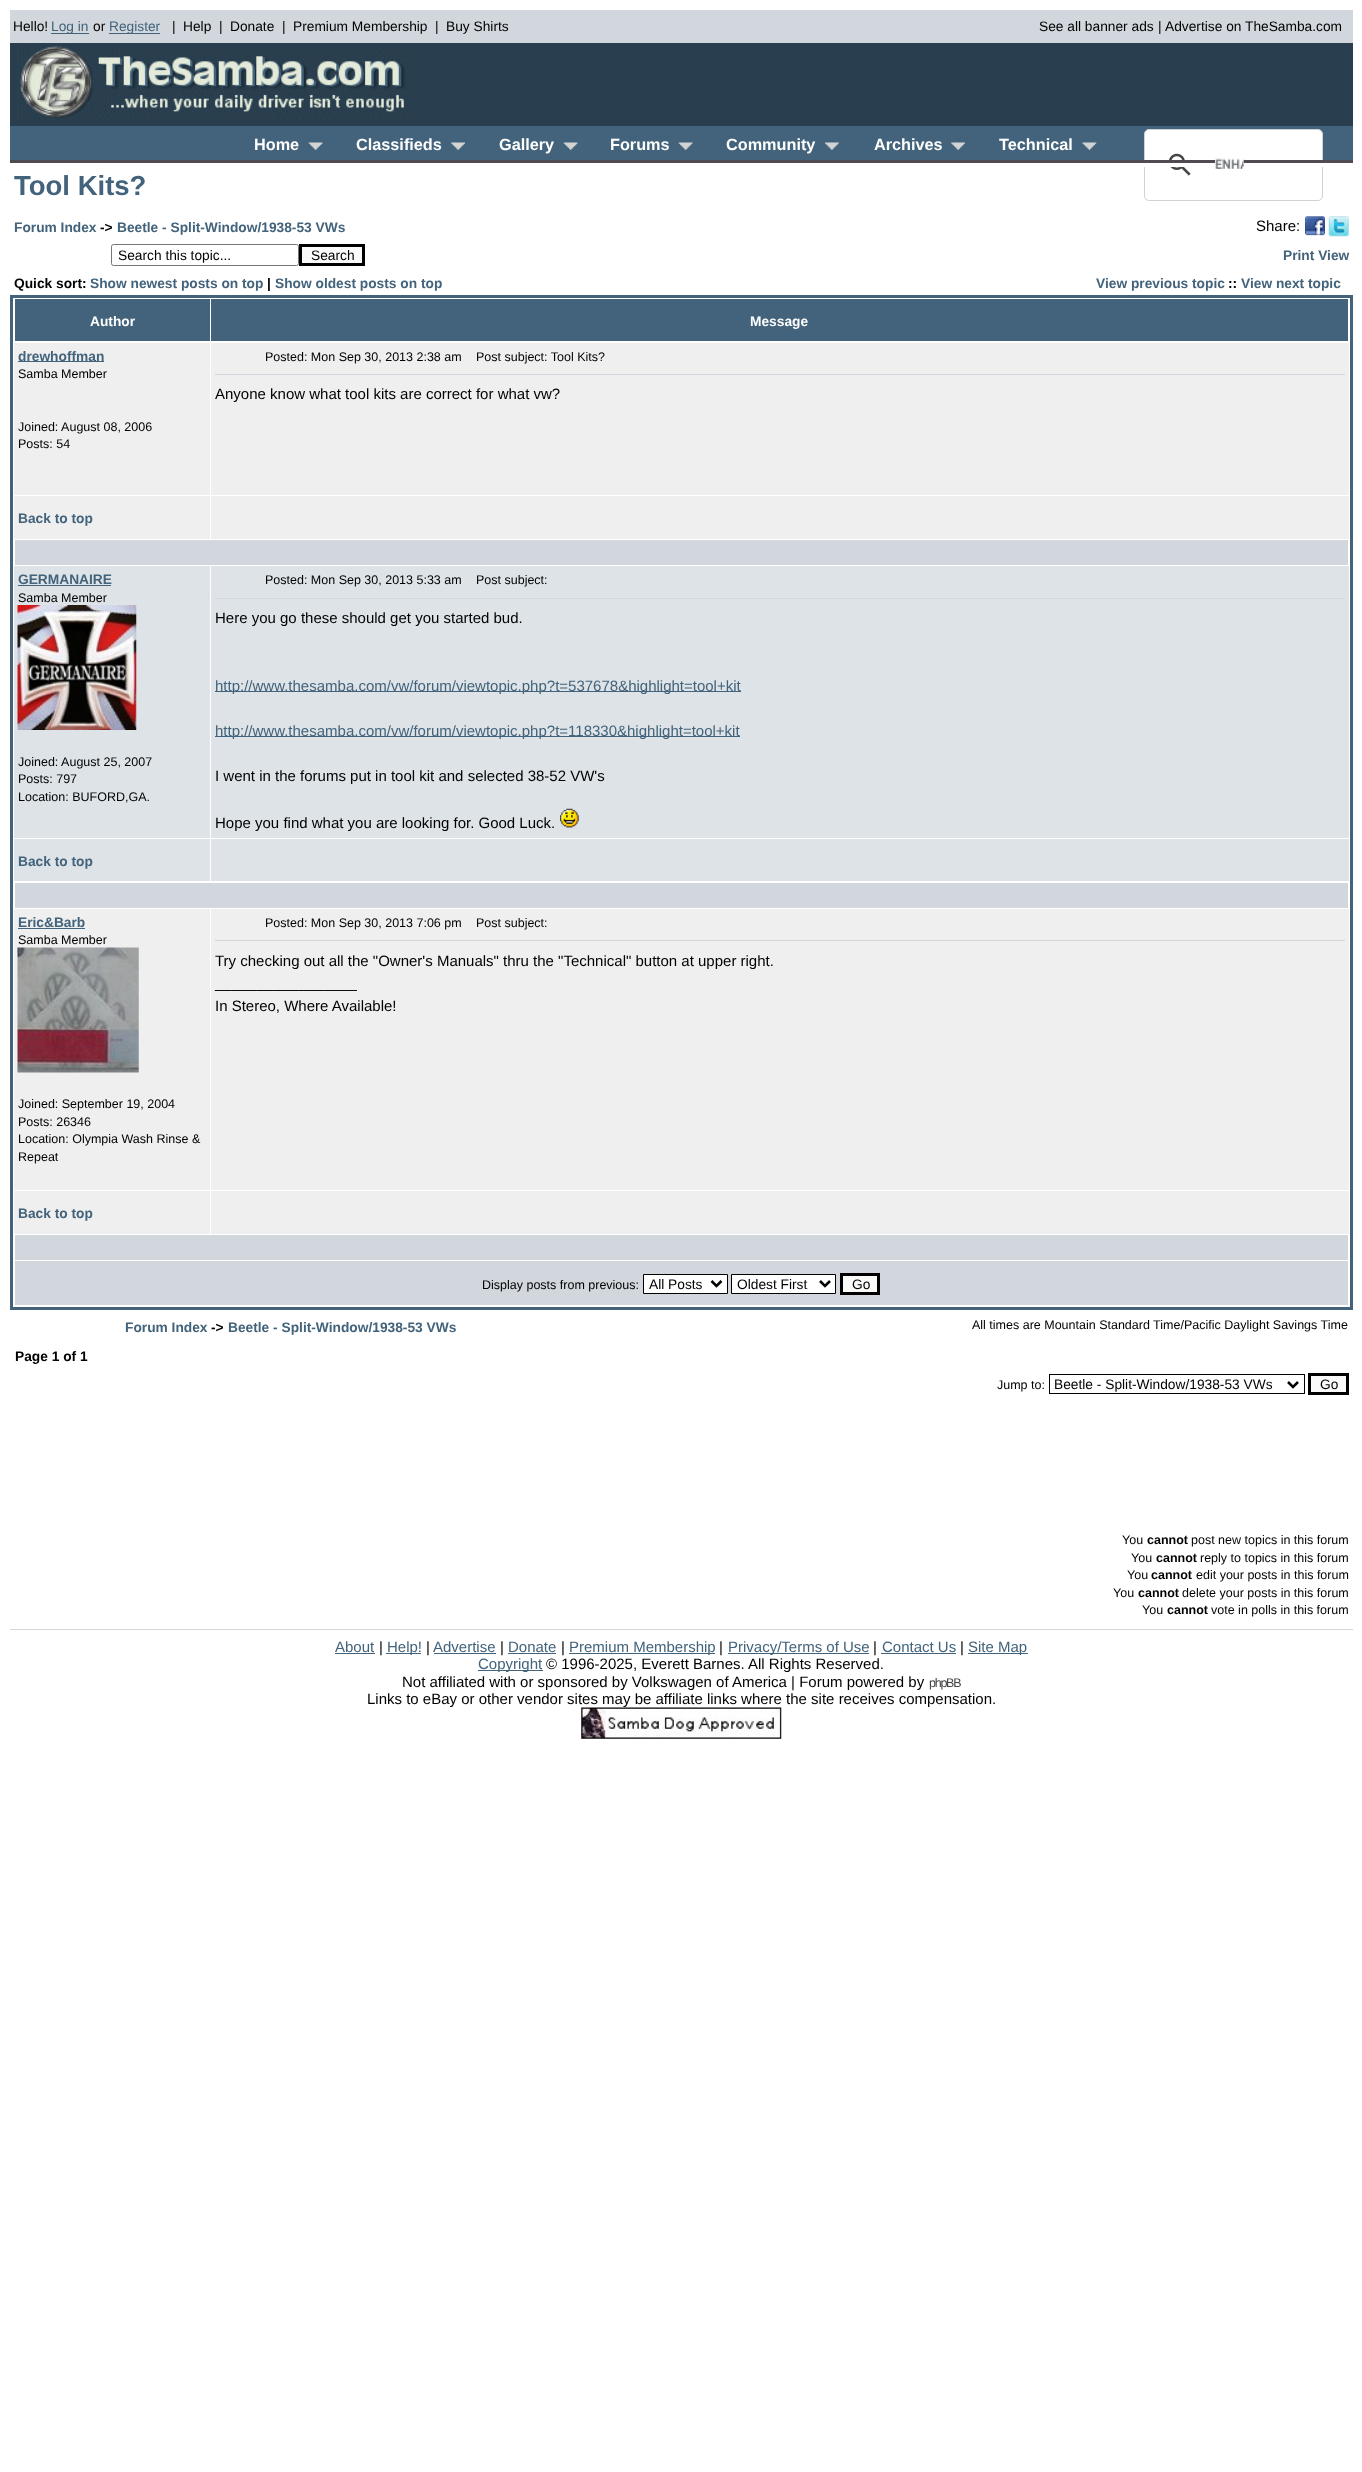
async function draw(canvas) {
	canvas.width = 1362;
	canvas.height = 2472;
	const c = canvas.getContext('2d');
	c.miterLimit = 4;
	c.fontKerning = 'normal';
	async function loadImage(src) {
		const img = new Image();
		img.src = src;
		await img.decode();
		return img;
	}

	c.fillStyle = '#fff';
	c.fillRect(0, 0, 1362, 2472);
	c.fillStyle = '#d1d7dc';
	c.fillRect(10, 10, 1343, 33);
	c.font = '13.75px Liberation Sans';
	c.fillStyle = '#000';
	c.fillText('Hello!', 13, 31);
	c.fillStyle = '#42637b';
	c.fillRect(51, 33, 38, 1);
	c.fillText('Log in', 51, 31);
	c.fillStyle = '#000';
	c.fillText('or', 93, 31);
	c.fillStyle = '#42637b';
	c.fillRect(109, 33, 51, 1);
	c.fillText('Register', 109, 31);
	c.fillStyle = '#000';
	for (const [text, x, y] of [
		['|', 172, 31],
		['Help', 183, 31],
		['|', 219, 31],
		['Donate', 230, 31],
		['|', 282, 31],
		['Premium Membership', 293, 31],
		['|', 435, 31],
		['Buy Shirts', 446, 31],
		['See all banner ads', 1039, 31],
		['|', 1158, 31],
		['Advertise on TheSamba.com', 1165, 31],
	]) {
		c.fillText(text, x, y);
	}
	c.fillStyle = '#293f4f';
	c.fillRect(10, 43, 1343, 83);
	c.drawImage(await loadImage('img1.png'), 14, 45, 397, 75);
	c.fillStyle = '#42637b';
	c.fillRect(10, 126, 1343, 34);
	c.font = 'bold 16.25px Liberation Sans';
	c.fillStyle = '#fefefe';
	c.fillText('Home', 254, 150);
	c.drawImage(await loadImage('img2.png'), 308, 142, 15, 8);
	c.fillText('Classifieds', 356, 150);
	c.drawImage(await loadImage('img3.png'), 451, 142, 14, 8);
	c.fillText('Gallery', 499, 150);
	c.drawImage(await loadImage('img4.png'), 563, 142, 15, 8);
	c.fillText('Forums', 610, 150);
	c.drawImage(await loadImage('img4.png'), 678, 142, 15, 8);
	c.fillText('Community', 726, 150);
	c.drawImage(await loadImage('img5.png'), 825, 142, 14, 8);
	c.fillText('Archives', 874, 150);
	c.drawImage(await loadImage('img3.png'), 951, 142, 14, 8);
	c.fillText('Technical', 999, 150);
	c.drawImage(await loadImage('img6.png'), 1082, 142, 15, 8);
	c.fillStyle = '#fff';
	c.beginPath();
	c.roundRect(1144.5, 129.5, 178, 71, 4.5);
	c.fill();
	c.strokeStyle = '#d2d2d2';
	c.stroke();
	c.drawImage(await loadImage('img7.png'), 1169, 153, 22, 23);
	for (const [x, y, w, h, color] of [
		[10, 160, 1343, 3, '#524a52'],
		[1215, 160, 29, 3, '#fff'],
		[1144, 163, 179, 4, '#fff'],
	]) {
		c.fillStyle = color;
		c.fillRect(x, y, w, h);
	}
	c.drawImage(await loadImage('img8.png'), 1215, 158, 29, 11);
	c.font = 'bold 27.5px Liberation Sans';
	c.fillStyle = '#42637b';
	c.fillText('Tool Kits?', 14, 195);
	c.font = 'bold 13.75px Liberation Sans';
	c.fillText('Forum Index', 14, 232);
	c.fillStyle = '#000';
	c.fillText('->', 100, 232);
	c.fillStyle = '#42637b';
	c.fillText('Beetle - Split-Window/1938-53 VWs', 117, 232);
	c.font = '15px Liberation Sans';
	c.fillStyle = '#000';
	c.fillText('Share:', 1256, 231);
	c.drawImage(await loadImage('img9.png'), 1305, 216, 20, 20);
	c.drawImage(await loadImage('img10.png'), 1328, 216, 21, 21);
	c.beginPath();
	c.roundRect(111.5, 244.5, 187, 21, 2);
	c.strokeStyle = '#767676';
	c.stroke();
	c.font = '13.75px Liberation Sans';
	c.fillText('Search this topic...', 118, 260);
	c.fillStyle = '#fafafa';
	c.beginPath();
	c.rect(300.5, 245.5, 63, 19);
	c.fill();
	c.strokeStyle = '#000';
	c.lineWidth = 3;
	c.stroke();
	c.fillStyle = '#000';
	c.fillText('Search', 311, 260);
	c.font = 'bold 13.75px Liberation Sans';
	c.fillStyle = '#42637b';
	c.fillText('Print View', 1283, 260);
	c.fillStyle = '#000';
	c.fillText('Quick sort:', 14, 288);
	c.fillStyle = '#42637b';
	c.fillText('Show newest posts on top', 90, 288);
	c.fillStyle = '#000';
	c.fillText('|', 267, 288);
	c.fillStyle = '#42637b';
	c.fillText('Show oldest posts on top', 275, 288);
	c.fillText('View previous topic', 1096, 288);
	c.fillStyle = '#000';
	c.fillText('::', 1228, 288);
	c.fillStyle = '#42637b';
	c.fillText('View next topic', 1241, 288);
	c.strokeStyle = '#42637b';
	c.strokeRect(11.5, 296.5, 1340, 1012);
	c.fillRect(15, 299, 195, 42);
	c.fillStyle = '#fefefe';
	c.fillText('Author', 90, 326);
	c.fillStyle = '#42637b';
	c.fillRect(211, 299, 1137, 42);
	c.fillStyle = '#fefefe';
	c.fillText('Message', 750, 326);
	c.fillStyle = '#efefef';
	c.fillRect(14, 343, 196, 152);
	c.fillStyle = '#42637b';
	c.fillRect(18, 361, 86, 1);
	c.fillText('drewhoffman', 18, 361);
	c.font = '12.5px Liberation Sans';
	c.fillStyle = '#000';
	for (const [text, x, y] of [
		['Samba Member', 18, 378],
		['Joined: August 08, 2006', 18, 431],
		['Posts: 54', 18, 448],
	]) {
		c.fillText(text, x, y);
	}
	c.fillStyle = '#efefef';
	c.fillRect(211, 343, 1138, 152);
	c.fillStyle = '#000';
	c.fillText('Posted: Mon Sep 30, 2013 2:38 am', 265, 361);
	c.fillText('Post subject: Tool Kits?', 476, 361);
	c.fillStyle = '#d1d7dc';
	c.fillRect(215, 374, 1130, 1);
	c.font = '15px Liberation Sans';
	c.fillStyle = '#000';
	c.fillText('Anyone know what tool kits are correct for what vw?', 215, 399);
	c.fillStyle = '#efefef';
	c.fillRect(14, 496, 196, 43);
	c.font = 'bold 13.75px Liberation Sans';
	c.fillStyle = '#42637b';
	c.fillText('Back to top', 18, 523);
	for (const [x, y, w, h, color] of [
		[211, 496, 1138, 43, '#efefef'],
		[15, 540, 1333, 25, '#d1d7dc'],
		[14, 566, 196, 272, '#dee3e7'],
	]) {
		c.fillStyle = color;
		c.fillRect(x, y, w, h);
	}
	c.fillStyle = '#42637b';
	c.fillText('GERMANAIRE', 18, 584);
	c.fillRect(18, 585, 93, 1);
	c.font = '12.5px Liberation Sans';
	c.fillStyle = '#000';
	c.fillText('Samba Member', 18, 602);
	c.drawImage(await loadImage('img11.png'), 17, 605, 120, 125);
	for (const [text, x, y] of [
		['Joined: August 25, 2007', 18, 766],
		['Posts: 797', 18, 783],
		['Location: BUFORD,GA.', 18, 801],
	]) {
		c.fillText(text, x, y);
	}
	c.fillStyle = '#dee3e7';
	c.fillRect(211, 566, 1138, 272);
	c.fillStyle = '#000';
	c.fillText('Posted: Mon Sep 30, 2013 5:33 am', 265, 584);
	c.fillText('Post subject:', 476, 584);
	c.fillStyle = '#d1d7dc';
	c.fillRect(215, 598, 1130, 1);
	c.font = '15px Liberation Sans';
	c.fillStyle = '#000';
	c.fillText('Here you go these should get you started bud.', 215, 623);
	c.fillStyle = '#42637b';
	c.fillRect(215, 691, 526, 1);
	c.fillText('http://www.thesamba.com/vw/forum/viewtopic.php?t=537678&highlight=tool+kit', 215, 691);
	c.fillRect(215, 736, 525, 1);
	c.fillText('http://www.thesamba.com/vw/forum/viewtopic.php?t=118330&highlight=tool+kit', 215, 736);
	c.fillStyle = '#000';
	c.fillText('I went in the forums put in tool kit and selected 38-52 VW\'s', 215, 781);
	c.fillText('Hope you find what you are looking for. Good Luck.', 215, 828);
	c.drawImage(await loadImage('img12.png'), 560, 808, 19, 20);
	c.fillStyle = '#dee3e7';
	c.fillRect(14, 839, 196, 42);
	c.font = 'bold 13.75px Liberation Sans';
	c.fillStyle = '#42637b';
	c.fillText('Back to top', 18, 866);
	for (const [x, y, w, h, color] of [
		[211, 839, 1138, 42, '#dee3e7'],
		[15, 883, 1333, 25, '#d1d7dc'],
		[14, 909, 196, 281, '#efefef'],
	]) {
		c.fillStyle = color;
		c.fillRect(x, y, w, h);
	}
	c.fillStyle = '#42637b';
	c.fillText('Eric&Barb', 18, 927);
	c.fillRect(18, 928, 67, 1);
	c.font = '12.5px Liberation Sans';
	c.fillStyle = '#000';
	c.fillText('Samba Member', 18, 944);
	c.drawImage(await loadImage('img13.png'), 17, 947, 122, 126);
	for (const [text, x, y] of [
		['Joined: September 19, 2004', 18, 1108],
		['Posts: 26346', 18, 1126],
		['Location: Olympia Wash Rinse &', 18, 1143],
		['Repeat', 18, 1161],
	]) {
		c.fillText(text, x, y);
	}
	c.fillStyle = '#efefef';
	c.fillRect(211, 909, 1138, 281);
	c.fillStyle = '#000';
	c.fillText('Posted: Mon Sep 30, 2013 7:06 pm', 265, 927);
	c.fillText('Post subject:', 476, 927);
	c.fillStyle = '#d1d7dc';
	c.fillRect(215, 940, 1130, 1);
	c.font = '15px Liberation Sans';
	c.fillStyle = '#000';
	for (const [text, x, y] of [
		['Try checking out all the "Owner\'s Manuals" thru the "Technical" button at upper right.', 215, 966],
		['_________________', 215, 988],
		['In Stereo, Where Available!', 215, 1011],
	]) {
		c.fillText(text, x, y);
	}
	c.fillStyle = '#efefef';
	c.fillRect(14, 1191, 196, 43);
	c.font = 'bold 13.75px Liberation Sans';
	c.fillStyle = '#42637b';
	c.fillText('Back to top', 18, 1218);
	for (const [x, y, w, h, color] of [
		[211, 1191, 1138, 43, '#efefef'],
		[15, 1235, 1333, 25, '#d1d7dc'],
		[15, 1261, 1333, 44, '#d1d7dc'],
	]) {
		c.fillStyle = color;
		c.fillRect(x, y, w, h);
	}
	c.font = '12.5px Liberation Sans';
	c.fillStyle = '#000';
	c.fillText('Display posts from previous:', 482, 1289);
	c.fillStyle = '#fff';
	c.beginPath();
	c.rect(643.5, 1274.5, 84, 19);
	c.fill();
	c.strokeStyle = '#000';
	c.lineWidth = 1;
	c.stroke();
	c.beginPath();
	c.moveTo(711.5, 1281);
	c.lineTo(716.5, 1286);
	c.lineTo(721.5, 1281);
	c.lineWidth = 2.5;
	c.stroke();
	c.font = '13.75px Liberation Sans';
	c.fillStyle = '#000';
	c.fillText('All Posts', 649, 1289);
	c.fillStyle = '#fff';
	c.beginPath();
	c.rect(731.5, 1274.5, 104, 19);
	c.fill();
	c.lineWidth = 1;
	c.stroke();
	c.beginPath();
	c.moveTo(820, 1281);
	c.lineTo(825, 1286);
	c.lineTo(830, 1281);
	c.lineWidth = 2.5;
	c.stroke();
	c.fillStyle = '#000';
	c.fillText('Oldest First', 737, 1289);
	c.fillStyle = '#fafafa';
	c.beginPath();
	c.rect(841.5, 1274.5, 37, 19);
	c.fill();
	c.lineWidth = 3;
	c.stroke();
	c.fillStyle = '#000';
	c.fillText('Go', 852, 1289);
	c.font = 'bold 13.75px Liberation Sans';
	c.fillStyle = '#42637b';
	c.fillText('Forum Index', 125, 1332);
	c.fillStyle = '#000';
	c.fillText('->', 211, 1332);
	c.fillStyle = '#42637b';
	c.fillText('Beetle - Split-Window/1938-53 VWs', 228, 1332);
	c.font = '12.5px Liberation Sans';
	c.fillStyle = '#000';
	c.fillText('All times are Mountain Standard Time/Pacific Daylight Savings Time', 972, 1329);
	c.font = 'bold 13.75px Liberation Sans';
	c.fillText('Page 1 of 1', 15, 1361);
	c.font = '12.5px Liberation Sans';
	c.fillText('Jump to:', 997, 1389);
	c.lineWidth = 1;
	c.strokeRect(1049.5, 1374.5, 255, 19);
	c.beginPath();
	c.moveTo(1288, 1382);
	c.lineTo(1293, 1387);
	c.lineTo(1298, 1382);
	c.lineWidth = 2.5;
	c.stroke();
	c.font = '13.75px Liberation Sans';
	c.fillText('Beetle - Split-Window/1938-53 VWs', 1054, 1389);
	c.fillStyle = '#fafafa';
	c.beginPath();
	c.rect(1309.5, 1374.5, 38, 19);
	c.fill();
	c.lineWidth = 3;
	c.stroke();
	c.fillStyle = '#000';
	c.fillText('Go', 1320, 1389);
	c.font = '12.5px Liberation Sans';
	c.fillText('You', 1122, 1544);
	c.font = 'bold 12.5px Liberation Sans';
	c.fillText('cannot', 1147, 1544);
	c.font = '12.5px Liberation Sans';
	c.fillText('post new topics in this forum', 1191, 1544);
	c.fillText('You', 1131, 1562);
	c.font = 'bold 12.5px Liberation Sans';
	c.fillText('cannot', 1156, 1562);
	c.font = '12.5px Liberation Sans';
	c.fillText('reply to topics in this forum', 1200, 1562);
	c.fillText('You', 1127, 1579);
	c.font = 'bold 12.5px Liberation Sans';
	c.fillText('cannot', 1151, 1579);
	c.font = '12.5px Liberation Sans';
	c.fillText('edit your posts in this forum', 1196, 1579);
	c.fillText('You', 1113, 1597);
	c.font = 'bold 12.5px Liberation Sans';
	c.fillText('cannot', 1138, 1597);
	c.font = '12.5px Liberation Sans';
	c.fillText('delete your posts in this forum', 1182, 1597);
	c.fillText('You', 1142, 1614);
	c.font = 'bold 12.5px Liberation Sans';
	c.fillText('cannot', 1167, 1614);
	c.font = '12.5px Liberation Sans';
	c.fillText('vote in polls in this forum', 1211, 1614);
	c.fillStyle = '#d1d7dc';
	c.fillRect(10, 1629, 1343, 1);
	c.font = '15px Liberation Sans';
	c.fillStyle = '#42637b';
	c.fillText('About', 335, 1652);
	c.fillRect(335, 1653, 40, 1);
	c.fillStyle = '#000';
	c.fillText('|', 379, 1652);
	c.fillStyle = '#42637b';
	c.fillRect(386, 1653, 35, 1);
	c.fillText('Help!', 387, 1652);
	c.fillStyle = '#000';
	c.fillText('|', 426, 1652);
	c.fillStyle = '#42637b';
	c.fillText('Advertise', 433, 1652);
	c.fillRect(434, 1653, 62, 1);
	c.fillStyle = '#000';
	c.fillText('|', 500, 1652);
	c.fillStyle = '#42637b';
	c.fillText('Donate', 508, 1652);
	c.fillRect(508, 1653, 48, 1);
	c.fillStyle = '#000';
	c.fillText('|', 561, 1652);
	c.fillStyle = '#42637b';
	c.fillRect(569, 1653, 146, 1);
	c.fillText('Premium Membership', 569, 1652);
	c.fillStyle = '#000';
	c.fillText('|', 719, 1652);
	c.fillStyle = '#42637b';
	c.fillRect(728, 1653, 141, 1);
	c.fillText('Privacy/Terms of Use', 728, 1652);
	c.fillStyle = '#000';
	c.fillText('|', 873, 1652);
	c.fillStyle = '#42637b';
	c.fillText('Contact Us', 882, 1652);
	c.fillRect(881, 1653, 75, 1);
	c.fillStyle = '#000';
	c.fillText('|', 960, 1652);
	c.fillStyle = '#42637b';
	c.fillRect(968, 1653, 60, 1);
	c.fillText('Site Map', 968, 1652);
	c.fillRect(478, 1670, 65, 1);
	c.fillText('Copyright', 478, 1669);
	c.fillStyle = '#000';
	c.fillText('© 1996-2025, Everett Barnes. All Rights Reserved.', 546, 1669);
	c.fillText('Not affiliated with or sponsored by Volkswagen of America | Forum powered by', 402, 1687);
	c.letterSpacing = '-1.25px';
	c.font = '12.5px Liberation Sans';
	c.fillStyle = '#444';
	c.fillText('phpBB', 929, 1687);
	c.letterSpacing = '0px';
	c.font = '15px Liberation Sans';
	c.fillStyle = '#000';
	c.fillText('Links to eBay or other vendor sites may be affiliate links where the site receives compensation.', 367, 1704);
	c.drawImage(await loadImage('img14.png'), 581, 1707, 201, 32);
}

draw(document.querySelector('canvas'));
